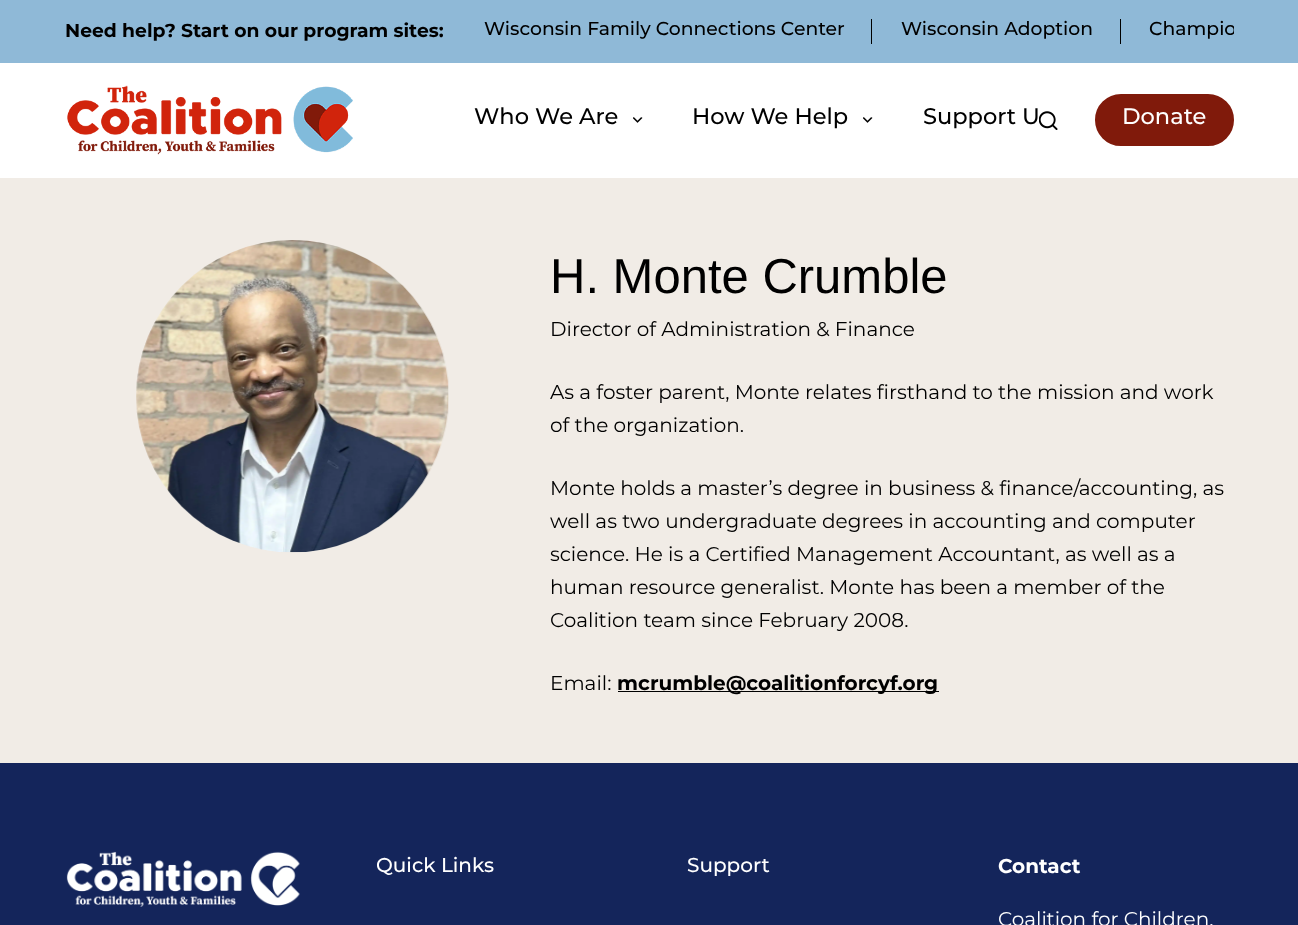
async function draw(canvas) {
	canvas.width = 1298;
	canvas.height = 925;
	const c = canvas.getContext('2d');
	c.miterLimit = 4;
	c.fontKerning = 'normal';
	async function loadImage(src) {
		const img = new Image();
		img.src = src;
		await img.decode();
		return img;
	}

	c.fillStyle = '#f1ece6';
	c.fillRect(0, 0, 1298, 925);
	c.fillStyle = '#8fb9d7';
	c.fillRect(0, 0, 1298, 63);
	c.font = 'bold 18.75px Montserrat';
	c.fillStyle = '#000';
	c.fillText('Need help? Start on our program sites:', 65, 37);
	c.font = '500 18.75px Montserrat';
	c.fillText('Wisconsin Family Connections Center', 484, 35);
	c.fillRect(871, 19, 1, 25);
	c.fillText('Wisconsin Adoption', 901, 35);
	c.fillRect(1120, 19, 1, 25);
	c.save();
	c.beginPath();
	c.rect(469, 0, 765, 63);
	c.clip();
	c.fillText('Champio', 1149, 35);
	c.restore();
	c.fillStyle = '#fff';
	c.fillRect(0, 63, 1298, 115);
	c.drawImage(await loadImage('img1.png'), 67, 85, 286, 70);
	c.font = '500 22.5px Montserrat';
	c.fillStyle = '#000';
	c.fillText('Who We Are', 474, 124);
	c.drawImage(await loadImage('img2.png'), 633, 117, 10, 6);
	c.fillText('How We Help', 692, 124);
	c.drawImage(await loadImage('img2.png'), 863, 117, 10, 6);
	c.fillText('Support U', 923, 124);
	c.drawImage(await loadImage('img3.png'), 1039, 111, 19, 19);
	c.fillStyle = '#801a0b';
	c.beginPath();
	c.roundRect(1096.5, 95.5, 136, 49, 24.5);
	c.fill();
	c.strokeStyle = '#801a0b';
	c.lineWidth = 3;
	c.stroke();
	c.fillStyle = '#fff';
	c.fillText('Donate', 1122, 124);
	c.drawImage(await loadImage('img4.png'), 136, 240, 313, 313);
	c.font = '49px Liberation Sans';
	c.fillStyle = '#000';
	c.fillText('H. Monte Crumble', 550, 293);
	c.font = '20px Montserrat';
	for (const [text, x, y] of [
		['Director of Administration & Finance', 550, 336],
		['As a foster parent, Monte relates firsthand to the mission and work', 550, 399],
		['of the organization.', 550, 432],
		['Monte holds a master’s degree in business & finance/accounting, as', 550, 495],
		['well as two undergraduate degrees in accounting and computer', 550, 528],
		['science. He is a Certified Management Accountant, as well as a', 550, 561],
		['human resource generalist. Monte has been a member of the', 550, 594],
		['Coalition team since February 2008.', 550, 627],
		['Email:', 550, 690],
	]) {
		c.fillText(text, x, y);
	}
	c.fillRect(618, 691, 321, 1);
	c.font = 'bold 20px Montserrat';
	c.fillText('mcrumble@coalitionforcyf.org', 617, 690);
	c.fillStyle = '#14255b';
	c.fillRect(0, 763, 1298, 162);
	c.drawImage(await loadImage('img5.png'), 66, 851, 234, 56);
	c.font = '500 20px Montserrat';
	c.fillStyle = '#fff';
	c.fillText('Quick Links', 376, 872);
	c.fillText('Support', 687, 872);
	c.font = 'bold 20px Montserrat';
	c.fillText('Contact', 998, 873);
	c.font = '20px Montserrat';
	c.fillText('Coalition for Children,', 998, 926);
}

draw(document.querySelector('canvas'));
